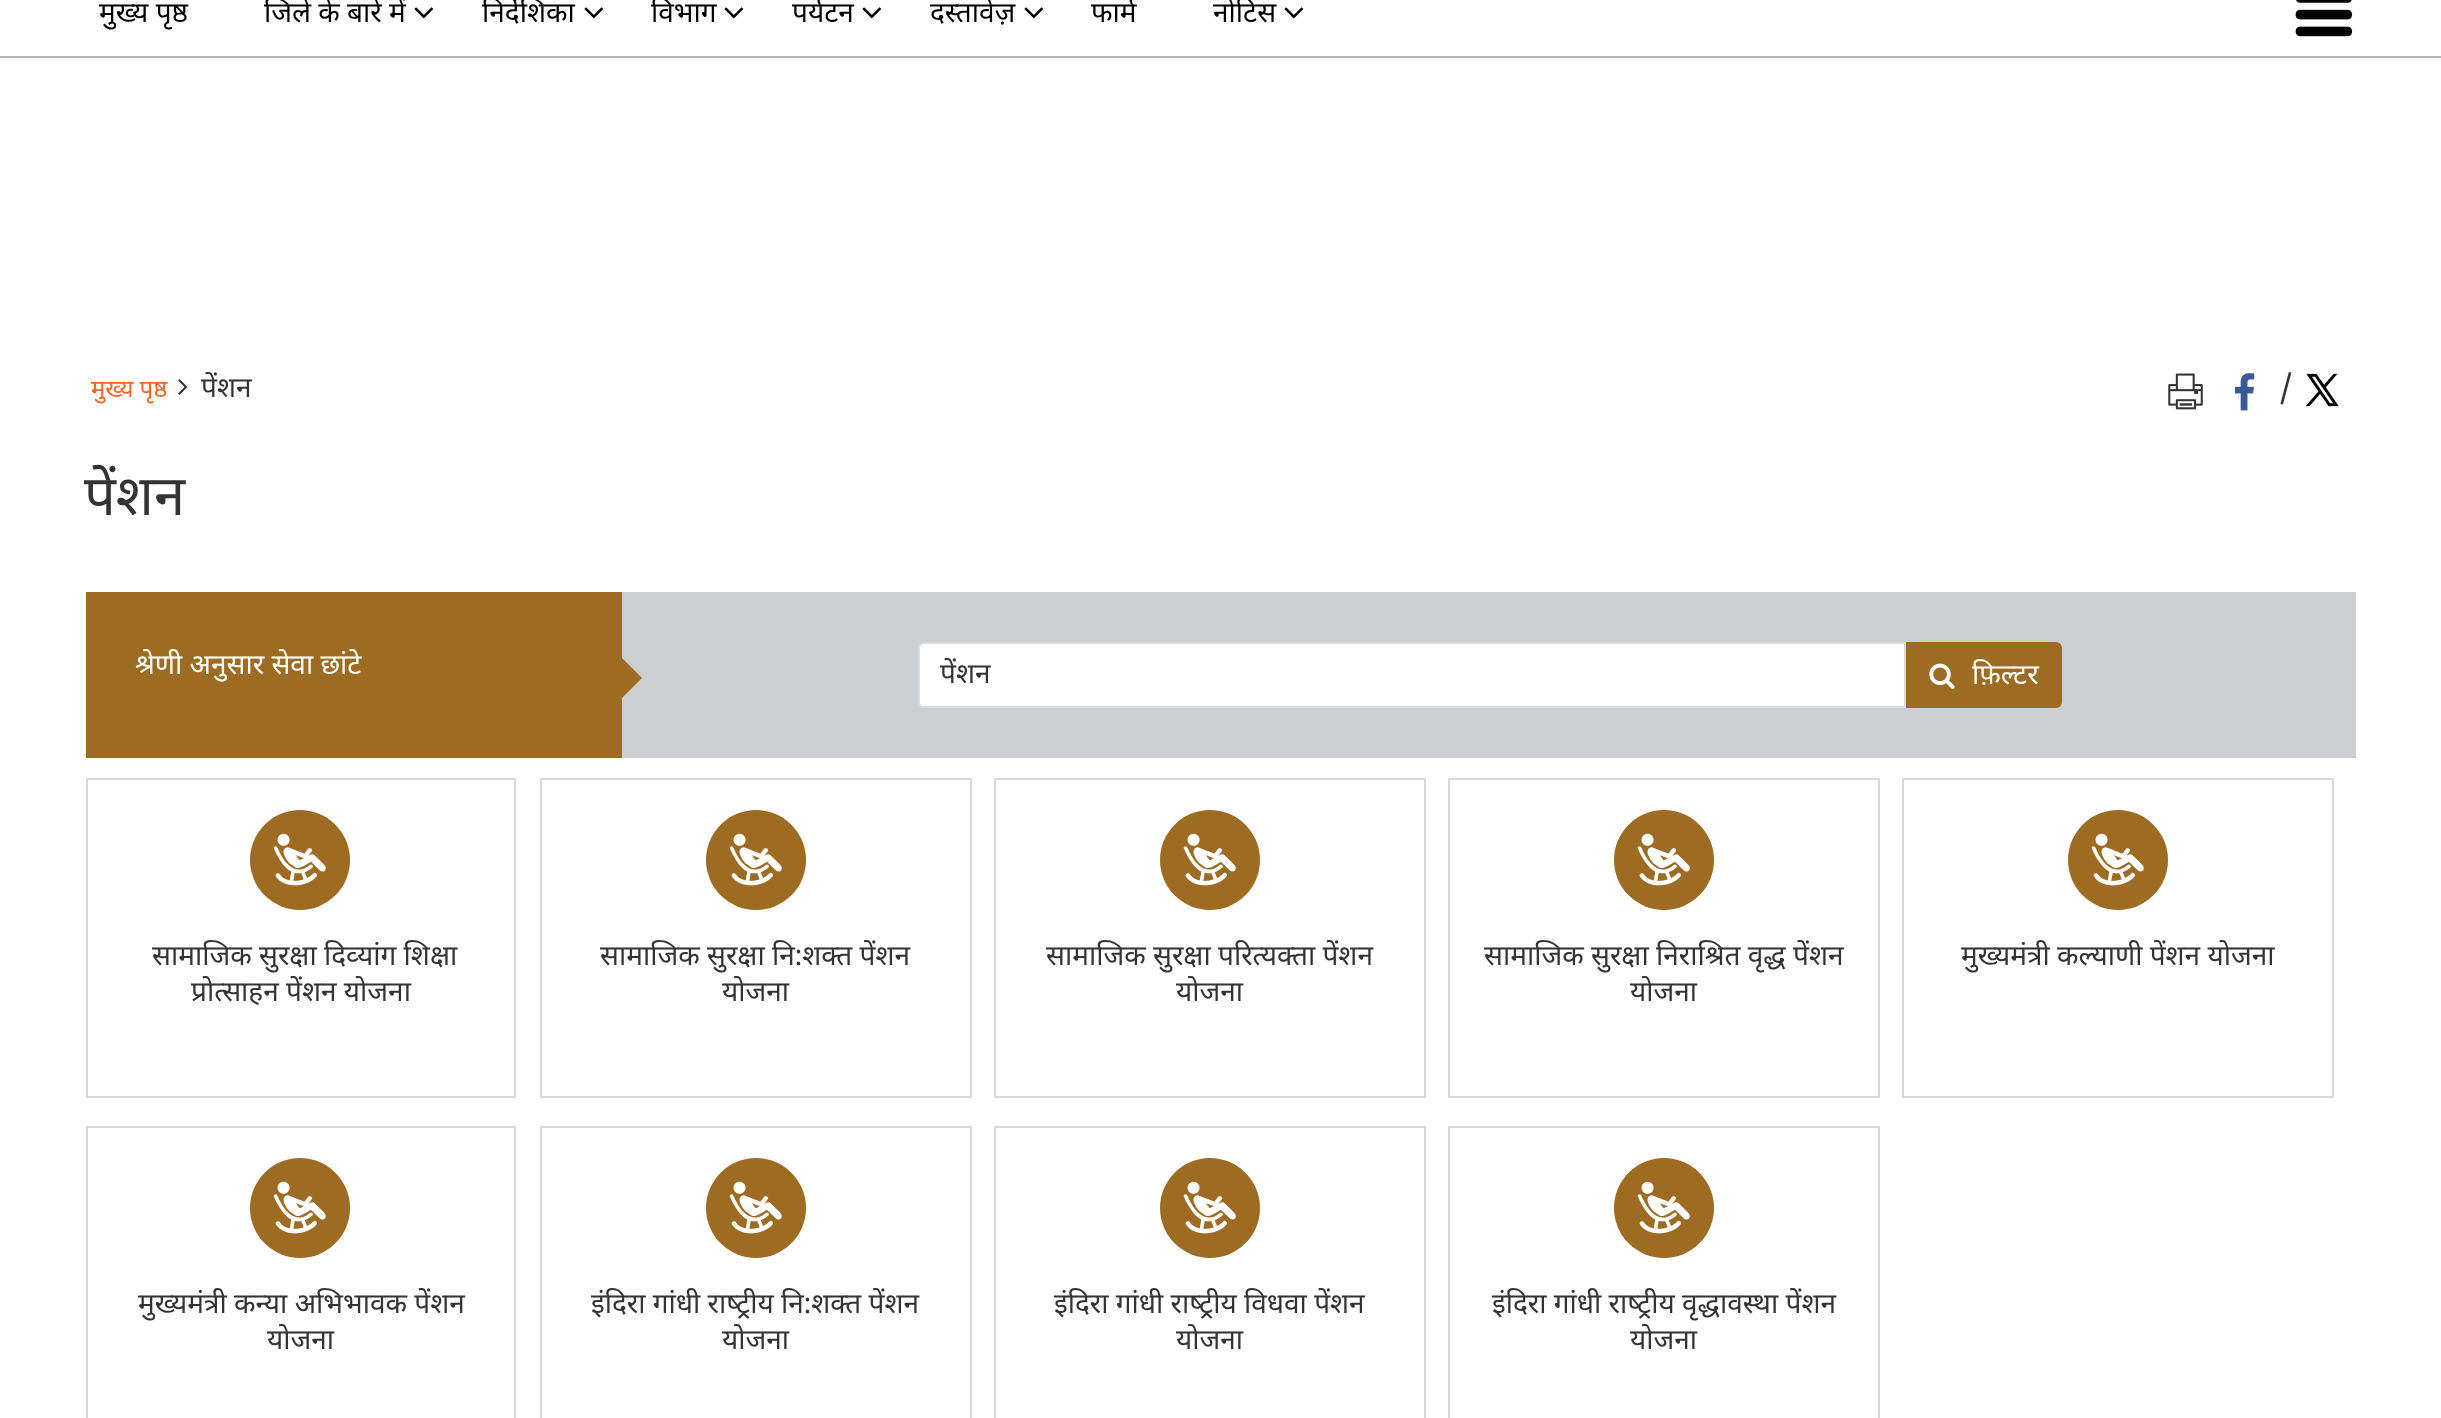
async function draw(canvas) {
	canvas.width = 2441;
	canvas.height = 1418;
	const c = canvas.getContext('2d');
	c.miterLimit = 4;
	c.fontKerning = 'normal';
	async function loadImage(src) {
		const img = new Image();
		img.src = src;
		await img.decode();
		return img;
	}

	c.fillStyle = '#fff';
	c.fillRect(0, 0, 2441, 1418);
	c.fillStyle = '#b3b3b3';
	c.fillRect(0, 56, 2441, 2);
	c.font = '28px Noto Sans';
	c.fillStyle = '#000';
	c.fillText('मुख्य पृष्ठ', 99, 22);
	c.fillText('जिले के बारे में', 264, 22);
	c.drawImage(await loadImage('img1.png'), 414, 7, 19, 12);
	c.fillText('निर्देशिका', 482, 22);
	c.drawImage(await loadImage('img1.png'), 584, 7, 19, 12);
	c.fillText('विभाग', 651, 22);
	c.drawImage(await loadImage('img1.png'), 724, 7, 19, 12);
	c.fillText('पर्यटन', 792, 22);
	c.drawImage(await loadImage('img1.png'), 862, 7, 19, 12);
	c.fillText('दस्तावेज़', 930, 22);
	c.drawImage(await loadImage('img1.png'), 1024, 7, 19, 12);
	c.fillText('फार्म', 1091, 22);
	c.fillText('नोटिस', 1213, 22);
	c.drawImage(await loadImage('img1.png'), 1284, 7, 19, 12);
	c.drawImage(await loadImage('img2.png'), 2295, 0, 58, 37);
	c.font = '24px Noto Sans';
	c.fillStyle = '#f26522';
	c.fillText('मुख्य पृष्ठ', 91, 397);
	c.drawImage(await loadImage('img3.png'), 178, 379, 10, 16);
	c.font = '28px Noto Sans';
	c.fillStyle = '#333';
	c.fillText('पेंशन', 201, 397);
	c.drawImage(await loadImage('img4.png'), 2168, 373, 35, 37);
	c.drawImage(await loadImage('img5.png'), 2234, 373, 21, 38);
	c.font = '32px "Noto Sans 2"';
	c.fillText('/', 2279, 399);
	c.drawImage(await loadImage('img6.png'), 2305, 373, 34, 34);
	c.font = '56px Noto Sans';
	c.fillText('पेंशन', 84, 515);
	c.fillStyle = '#cccfd1';
	c.fillRect(622, 592, 1734, 166);
	c.fillStyle = '#9e6b22';
	c.fillRect(86, 592, 536, 166);
	c.font = '28px Noto Sans';
	c.fillStyle = '#fff';
	c.fillText('श्रेणी अनुसार सेवा छांटे', 135, 674);
	c.fillStyle = '#9e6b22';
	c.beginPath();
	c.moveTo(622, 698);
	c.lineTo(622, 658);
	c.lineTo(642, 678);
	c.closePath();
	c.fill();
	c.fillStyle = '#fff';
	c.beginPath();
	c.roundRect(919, 643, 986, 64, [5, 0, 0, 5]);
	c.fill();
	c.strokeStyle = '#dbdbdb';
	c.lineWidth = 2;
	c.stroke();
	c.save();
	c.beginPath();
	c.rect(940, 658, 944, 34);
	c.clip();
	c.fillStyle = '#333';
	c.fillText('पेंशन', 940, 683);
	c.restore();
	c.fillStyle = '#9e6b22';
	c.beginPath();
	c.roundRect(1906, 642, 156, 66, [0, 6, 6, 0]);
	c.fill();
	c.drawImage(await loadImage('img7.png'), 1929, 663, 26, 26);
	c.fillStyle = '#fff';
	c.fillText('फ़िल्टर', 1972, 684);
	c.strokeStyle = '#d8d8d8';
	c.strokeRect(87, 779, 428, 318);
	c.fillStyle = '#9e6b22';
	c.beginPath();
	c.arc(300, 860, 50, 0, 2 * Math.PI);
	c.fill();
	c.drawImage(await loadImage('img8.png'), 273, 833, 53, 53);
	c.fillStyle = '#333';
	c.fillText('सामाजिक सुरक्षा दिव्‍यांग शिक्षा', 152, 965);
	c.fillText('प्रोत्‍साहन पेंशन योजना', 191, 1001);
	c.strokeRect(541, 779, 430, 318);
	c.fillStyle = '#9e6b22';
	c.beginPath();
	c.arc(756, 860, 50, 0, 2 * Math.PI);
	c.fill();
	c.drawImage(await loadImage('img8.png'), 729, 833, 53, 53);
	c.fillStyle = '#333';
	c.fillText('सामाजिक सुरक्षा नि:शक्‍त पेंशन', 600, 965);
	c.fillText('योजना', 722, 1001);
	c.strokeRect(995, 779, 430, 318);
	c.fillStyle = '#9e6b22';
	c.beginPath();
	c.arc(1210, 860, 50, 0, 2 * Math.PI);
	c.fill();
	c.drawImage(await loadImage('img8.png'), 1183, 833, 53, 53);
	c.fillStyle = '#333';
	c.fillText('सामाजिक सुरक्षा परित्यक्ता पेंशन', 1046, 965);
	c.fillText('योजना', 1176, 1001);
	c.strokeRect(1449, 779, 430, 318);
	c.fillStyle = '#9e6b22';
	c.beginPath();
	c.arc(1664, 860, 50, 0, 2 * Math.PI);
	c.fill();
	c.drawImage(await loadImage('img8.png'), 1637, 833, 53, 53);
	c.fillStyle = '#333';
	c.fillText('सामाजिक सुरक्षा निराश्रित वृद्ध पेंशन', 1484, 965);
	c.fillText('योजना', 1630, 1001);
	c.strokeRect(1903, 779, 430, 318);
	c.fillStyle = '#9e6b22';
	c.beginPath();
	c.arc(2118, 860, 50, 0, 2 * Math.PI);
	c.fill();
	c.drawImage(await loadImage('img8.png'), 2091, 833, 53, 53);
	c.fillStyle = '#333';
	c.fillText('मुख्यमंत्री कल्याणी पेंशन योजना', 1961, 965);
	c.strokeRect(87, 1127, 428, 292);
	c.fillStyle = '#9e6b22';
	c.beginPath();
	c.arc(300, 1208, 50, 0, 2 * Math.PI);
	c.fill();
	c.drawImage(await loadImage('img8.png'), 273, 1181, 53, 53);
	c.fillStyle = '#333';
	c.fillText('मुख्‍यमंत्री कन्‍या अभिभावक पेंशन', 138, 1313);
	c.fillText('योजना', 267, 1349);
	c.strokeRect(541, 1127, 430, 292);
	c.fillStyle = '#9e6b22';
	c.beginPath();
	c.arc(756, 1208, 50, 0, 2 * Math.PI);
	c.fill();
	c.drawImage(await loadImage('img8.png'), 729, 1181, 53, 53);
	c.fillStyle = '#333';
	c.fillText('इंदिरा गांधी राष्‍ट्रीय नि:शक्‍त पेंशन', 591, 1313);
	c.fillText('योजना', 722, 1349);
	c.strokeRect(995, 1127, 430, 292);
	c.fillStyle = '#9e6b22';
	c.beginPath();
	c.arc(1210, 1208, 50, 0, 2 * Math.PI);
	c.fill();
	c.drawImage(await loadImage('img8.png'), 1183, 1181, 53, 53);
	c.fillStyle = '#333';
	c.fillText('इंदिरा गांधी राष्‍ट्रीय विधवा पेंशन', 1054, 1313);
	c.fillText('योजना', 1176, 1349);
	c.strokeRect(1449, 1127, 430, 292);
	c.fillStyle = '#9e6b22';
	c.beginPath();
	c.arc(1664, 1208, 50, 0, 2 * Math.PI);
	c.fill();
	c.drawImage(await loadImage('img8.png'), 1637, 1181, 53, 53);
	c.fillStyle = '#333';
	c.fillText('इंदिरा गांधी राष्‍ट्रीय वृद्धावस्‍था पेंशन', 1492, 1313);
	c.fillText('योजना', 1630, 1349);
}

draw(document.querySelector('canvas'));
